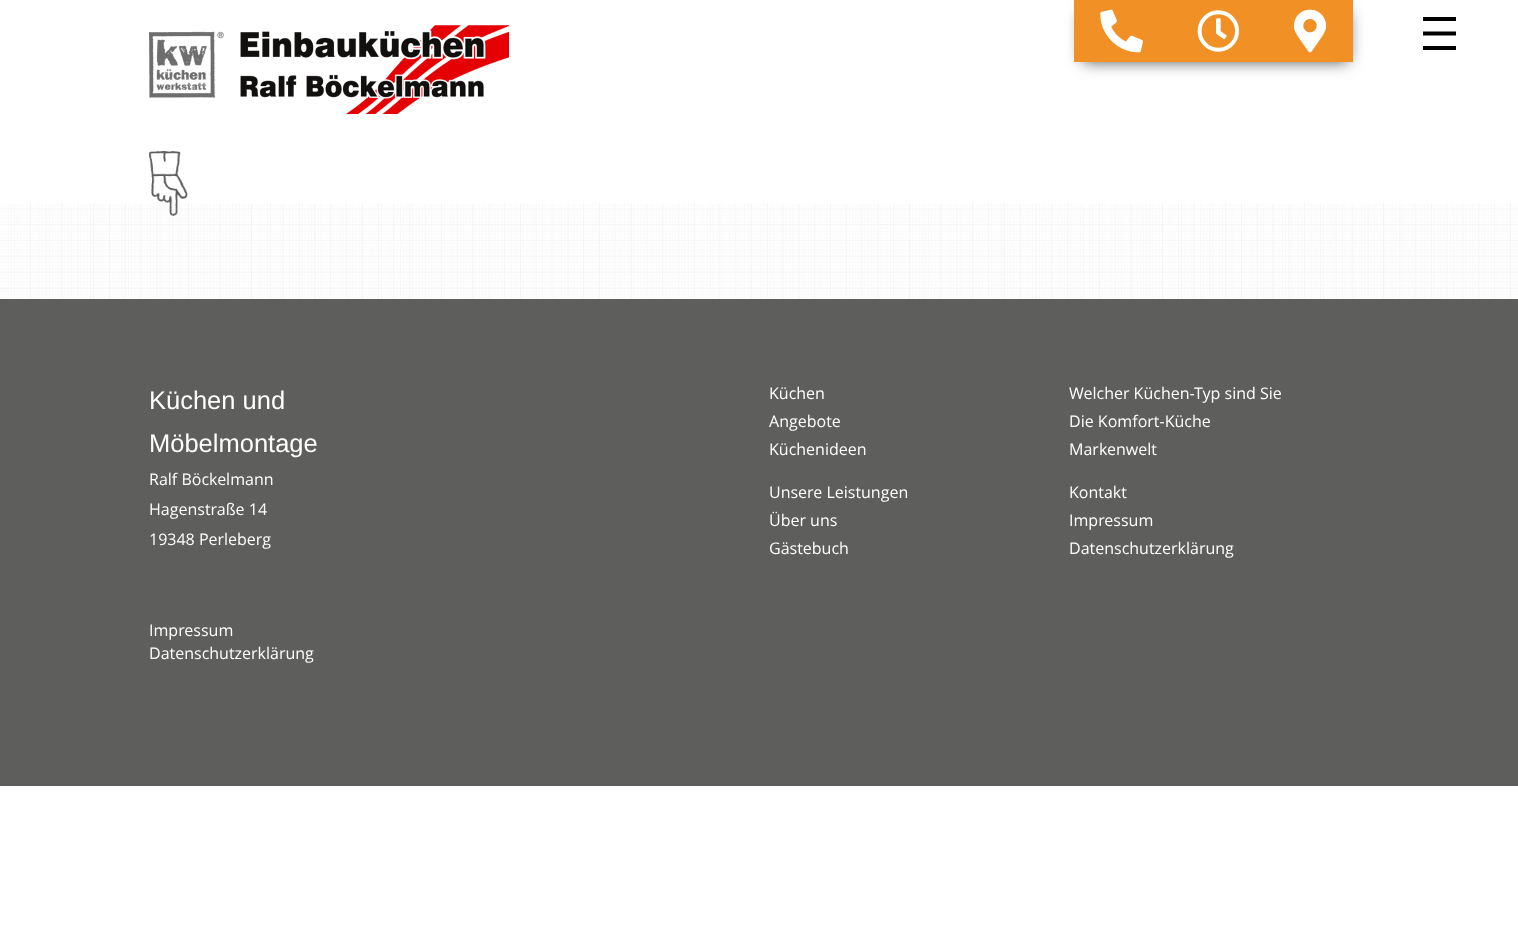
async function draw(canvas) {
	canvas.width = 1518;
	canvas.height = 936;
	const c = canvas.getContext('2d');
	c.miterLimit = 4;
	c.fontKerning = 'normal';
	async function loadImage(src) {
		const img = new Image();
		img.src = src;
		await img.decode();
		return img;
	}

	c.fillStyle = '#fff';
	c.fillRect(0, 0, 1518, 936);
	c.drawImage(await loadImage('img1.png'), 149, 25, 360, 89);
	c.fillStyle = '#000000bf';
	c.filter = 'blur(8px)';
	c.beginPath();
	c.rect(1083, 13, 265, 48);
	c.fill();
	c.filter = 'none';
	c.fillStyle = '#f19024';
	c.fillRect(1074, 0, 279, 62);
	c.drawImage(await loadImage('img2.png'), 1100, 9, 43, 44);
	c.drawImage(await loadImage('img3.png'), 1197, 10, 42, 42);
	c.drawImage(await loadImage('img4.png'), 1294, 9, 32, 44);
	c.fillStyle = '#000';
	c.beginPath();
	c.moveTo(1456, 21);
	c.lineTo(1423, 21);
	c.lineTo(1423, 17);
	c.lineTo(1456, 17);
	c.closePath();
	c.moveTo(1456, 31.5);
	c.lineTo(1423, 31.5);
	c.lineTo(1423, 35.5);
	c.lineTo(1456, 35.5);
	c.closePath();
	c.moveTo(1456, 46);
	c.lineTo(1423, 46);
	c.lineTo(1423, 50);
	c.lineTo(1456, 50);
	c.closePath();
	c.fill();
	c.drawImage(await loadImage('img5.png'), 149, 151, 39, 65);
	c.drawImage(await loadImage('img6.png'), 0, 203, 1518, 96);
	c.fillStyle = '#5e5e5d';
	c.fillRect(0, 299, 1518, 487);
	c.font = '25.5px Liberation Sans';
	c.fillStyle = '#fff';
	c.fillText('Küchen und', 149, 409);
	c.fillText('Möbelmontage', 149, 452);
	c.font = '16px Open Sans';
	for (const [text, x, y] of [
		['Ralf Böckelmann', 149, 485],
		['Hagenstraße 14', 149, 515],
		['19348 Perleberg', 149, 545],
		['Impressum', 149, 636],
		['Datenschutzerklärung', 149, 659],
		['Küchen', 769, 399],
		['Angebote', 769, 427],
		['Küchenideen', 769, 455],
		['Welcher Küchen-Typ sind Sie', 1069, 399],
		['Die Komfort-Küche', 1069, 427],
		['Markenwelt', 1069, 455],
		['Unsere Leistungen', 769, 498],
		['Über uns', 769, 526],
		['Gästebuch', 769, 554],
		['Kontakt', 1069, 498],
		['Impressum', 1069, 526],
		['Datenschutzerklärung', 1069, 554],
	]) {
		c.fillText(text, x, y);
	}
}

draw(document.querySelector('canvas'));
